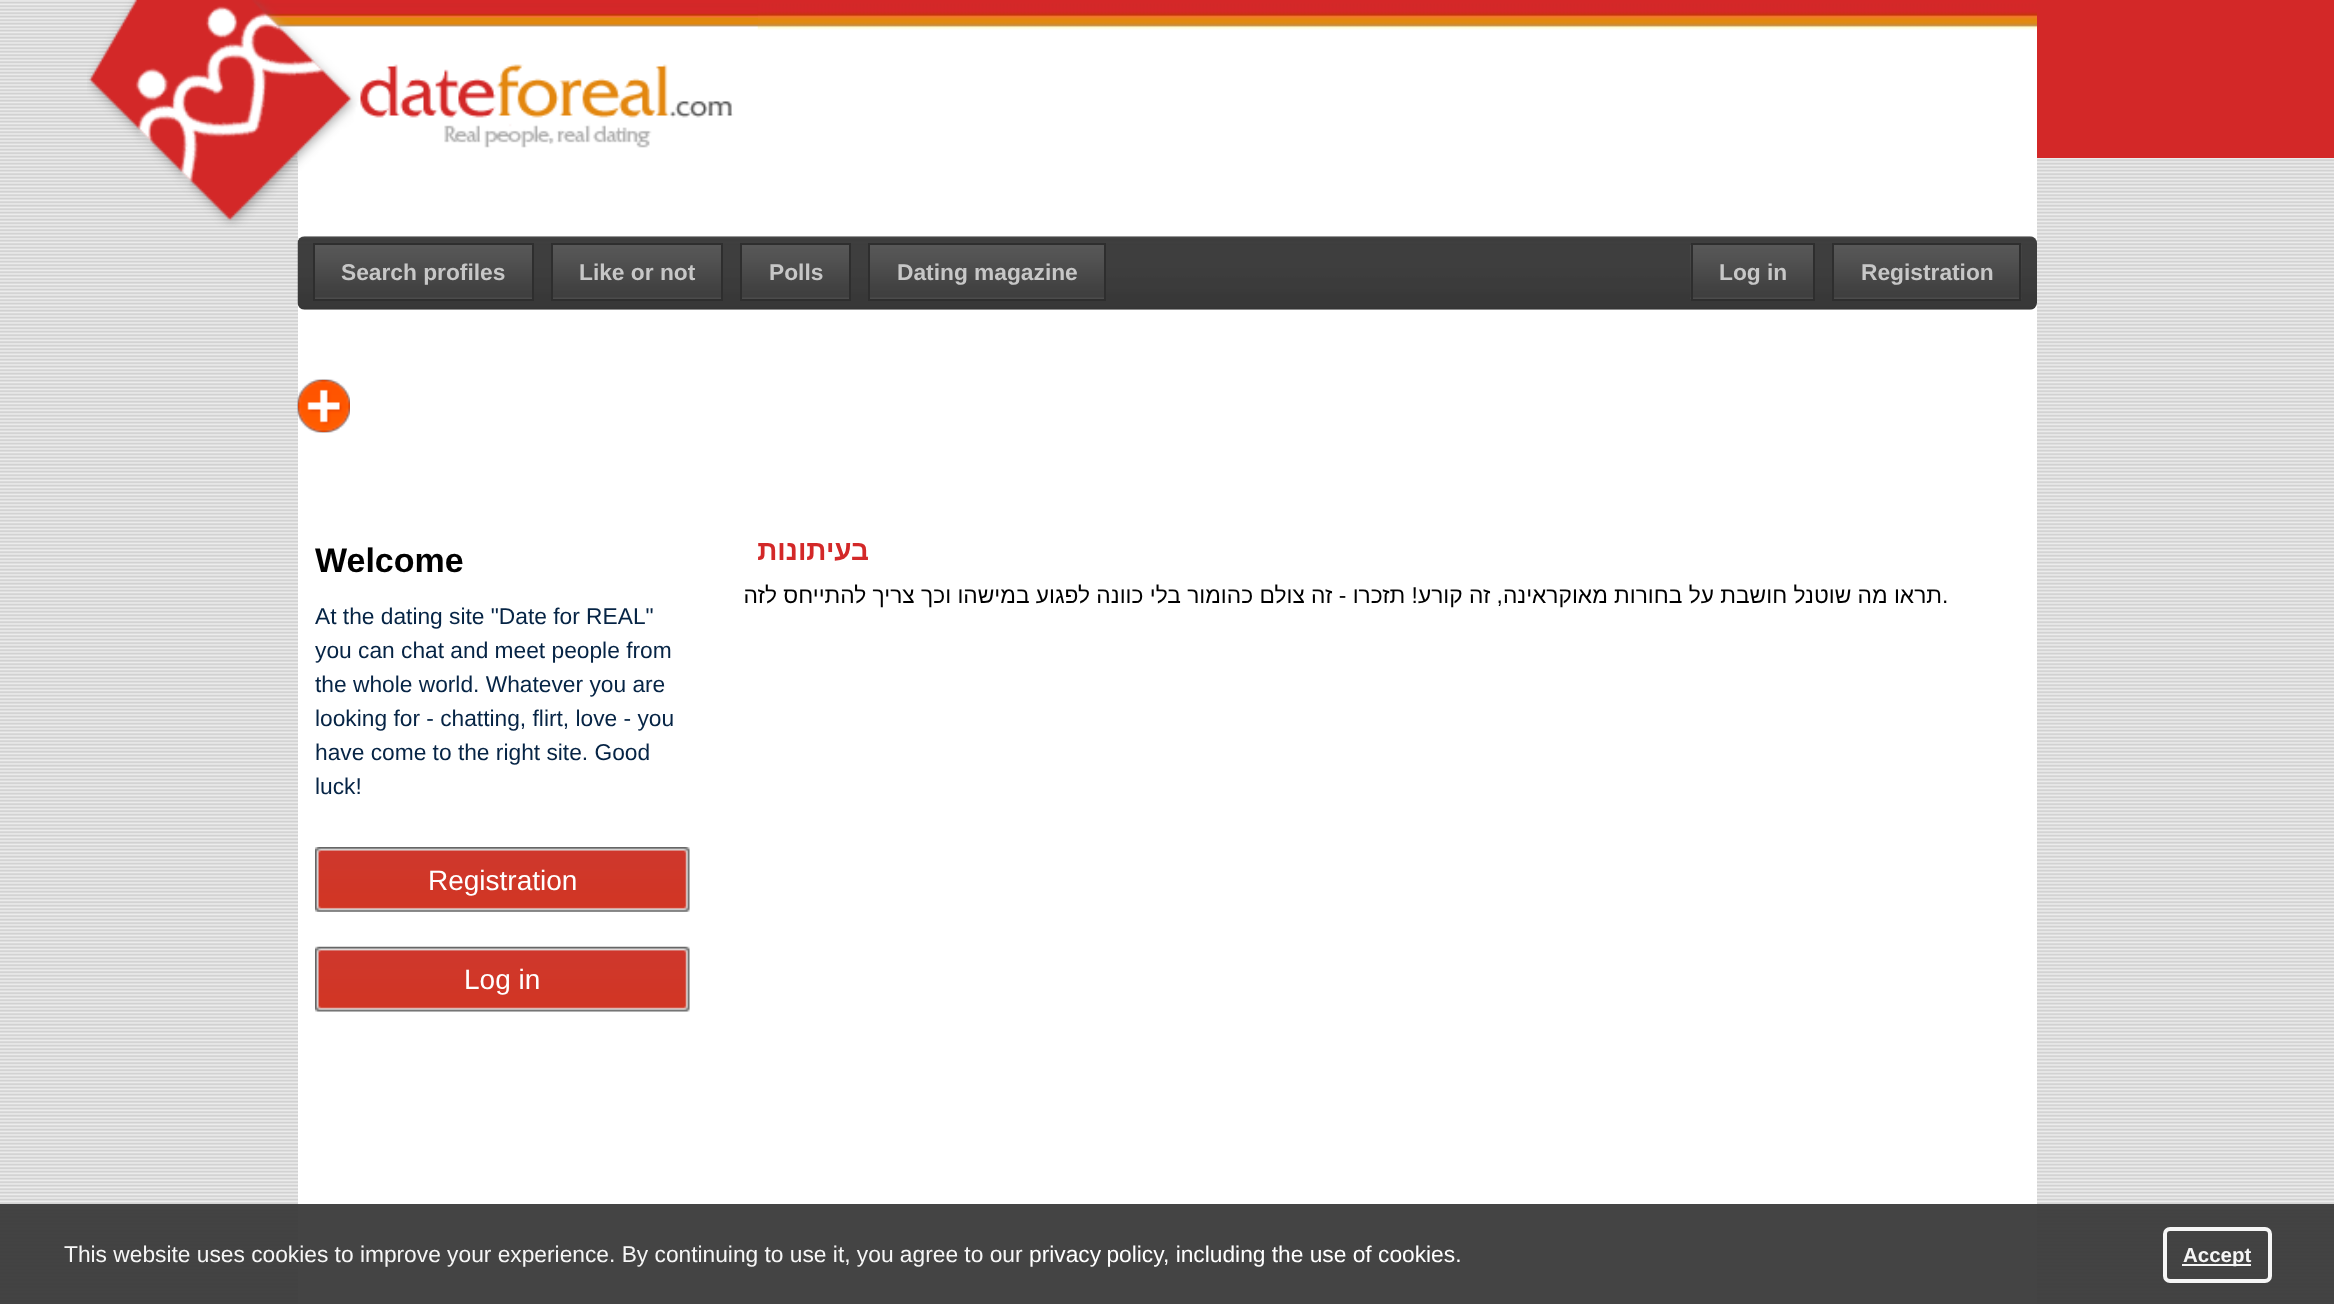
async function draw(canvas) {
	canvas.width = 2334;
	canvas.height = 1304;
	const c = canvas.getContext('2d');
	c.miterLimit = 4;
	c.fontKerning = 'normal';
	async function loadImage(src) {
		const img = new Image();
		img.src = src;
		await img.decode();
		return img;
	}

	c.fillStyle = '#fff';
	c.fillRect(0, 0, 2334, 1304);
	c.drawImage(await loadImage('img1.png'), 0, 0, 2334, 1304);
	c.fillStyle = '#d32828';
	c.fillRect(2037, 0, 297, 158);
	c.fillStyle = '#fff';
	c.fillRect(298, 161, 1739, 1143);
	c.drawImage(await loadImage('img2.png'), 297, 0, 1740, 161);
	c.drawImage(await loadImage('img3.png'), 87, 0, 671, 228);
	c.drawImage(await loadImage('img4.png'), 297, 236, 1740, 74);
	c.drawImage(await loadImage('img5.png'), 315, 245, 217, 54);
	c.strokeStyle = '#2e2e2e';
	c.lineWidth = 2;
	c.strokeRect(314, 244, 219, 56);
	c.font = 'bold 22.75px Liberation Sans';
	c.fillStyle = '#c7c7c7';
	c.fillText('Search profiles', 341, 280);
	c.drawImage(await loadImage('img6.png'), 553, 245, 168, 54);
	c.strokeRect(552, 244, 170, 56);
	c.fillText('Like or not', 579, 280);
	c.drawImage(await loadImage('img7.png'), 742, 245, 107, 54);
	c.strokeRect(741, 244, 109, 56);
	c.fillText('Polls', 769, 280);
	c.drawImage(await loadImage('img8.png'), 870, 245, 234, 54);
	c.strokeRect(869, 244, 236, 56);
	c.fillText('Dating magazine', 897, 280);
	c.drawImage(await loadImage('img9.png'), 1690, 245, 123, 55);
	c.strokeRect(1692, 244, 122, 56);
	c.fillText('Log in', 1719, 280);
	c.drawImage(await loadImage('img10.png'), 1834, 245, 188, 55);
	c.strokeRect(1833, 244, 187, 56);
	c.fillText('Registration', 1861, 280);
	c.drawImage(await loadImage('img11.png'), 297, 379, 53, 54);
	c.drawImage(await loadImage('img12.png'), 297, 379, 53, 54);
	c.font = 'bold 34px Liberation Sans';
	c.fillStyle = '#000';
	c.fillText('Welcome', 315, 572);
	c.font = '22.75px Liberation Sans';
	c.fillStyle = '#062445';
	for (const [text, x, y] of [
		['At the dating site "Date for REAL"', 315, 624],
		['you can chat and meet people from', 315, 658],
		['the whole world. Whatever you are', 315, 692],
		['looking for - chatting, flirt, love - you', 315, 726],
		['have come to the right site. Good', 315, 760],
		['luck!', 315, 794],
	]) {
		c.fillText(text, x, y);
	}
	c.drawImage(await loadImage('img13.png'), 315, 847, 375, 65);
	c.font = '28px Liberation Sans';
	c.fillStyle = '#fff';
	c.fillText('Registration', 428, 890);
	c.drawImage(await loadImage('img14.png'), 315, 946, 375, 66);
	c.fillText('Log in', 464, 989);
	c.direction = 'rtl';
	c.font = 'bold 28px Liberation Sans';
	c.fillStyle = '#d32828';
	c.fillText('בעיתונות', 869, 560);
	c.font = '22.75px Liberation Sans';
	c.fillStyle = '#000';
	c.fillText('תראו מה שוטנל חושבת על בחורות מאוקראינה, זה קורע! תזכרו - זה צולם כהומור בלי כוונה לפגוע במישהו וכך צריך להתייחס לזה', 1942, 603);
	c.direction = 'ltr';
	c.fillText('.', 1942, 603);
	c.fillStyle = '#3a3a3af2';
	c.fillRect(0, 1204, 2334, 100);
	c.fillStyle = '#f6f6f6';
	c.fillText('This website uses cookies to improve your experience. By continuing to use it, you agree to our', 64, 1262);
	c.wordSpacing = '-1px';
	c.fillStyle = '#fff';
	c.fillText('privacy policy', 1029, 1262);
	c.wordSpacing = '0px';
	c.fillText(', including the use of cookies.', 1163, 1262);
	c.beginPath();
	c.roundRect(2165, 1229, 105, 52, 5);
	c.strokeStyle = '#f6f6f6';
	c.lineWidth = 4;
	c.stroke();
	c.fillStyle = '#f6f6f6';
	c.fillRect(2182, 1264, 69, 2);
	c.font = 'bold 20.5px Liberation Sans';
	c.fillText('Accept', 2183, 1262);
}

draw(document.querySelector('canvas'));
